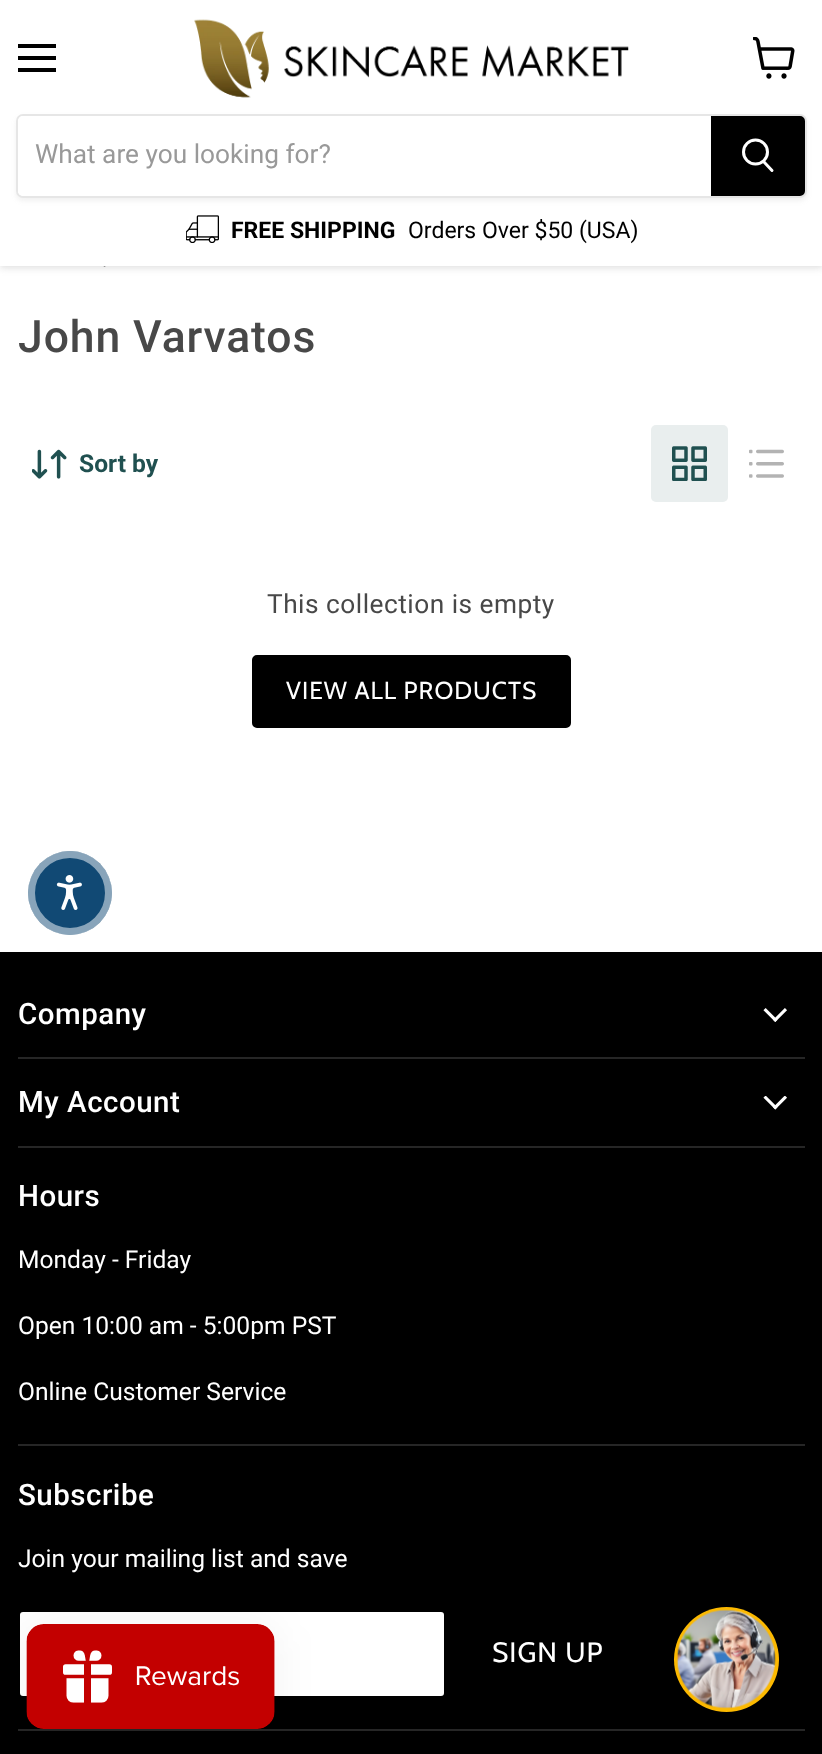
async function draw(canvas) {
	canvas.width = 822;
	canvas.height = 1754;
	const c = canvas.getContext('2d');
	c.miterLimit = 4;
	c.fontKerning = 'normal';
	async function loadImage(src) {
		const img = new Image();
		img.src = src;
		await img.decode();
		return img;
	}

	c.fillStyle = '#fff';
	c.fillRect(0, 0, 822, 1754);
	c.drawImage(await loadImage('img4.png'), 103, 266, 3, 1);
	c.fillStyle = '#80808040';
	c.filter = 'blur(3.5px)';
	c.beginPath();
	c.rect(0, 2, 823, 266);
	c.fill();
	c.filter = 'none';
	for (const [x, y, w, h, color] of [
		[0, 0, 822, 266, '#fff'],
		[18, 44, 38, 4, '#000'],
		[18, 56, 38, 4, '#000'],
		[18, 68, 38, 4, '#000'],
	]) {
		c.fillStyle = color;
		c.fillRect(x, y, w, h);
	}
	c.drawImage(await loadImage('img1.png'), 753, 37, 42, 42);
	c.drawImage(await loadImage('img2.png'), 194, 19, 435, 79);
	c.save();
	c.beginPath();
	c.moveTo(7, 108);
	c.lineTo(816, 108);
	c.lineTo(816, 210);
	c.lineTo(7, 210);
	c.closePath();
	c.moveTo(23, 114);
	c.lineTo(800, 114);
	c.bezierCurveTo(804, 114, 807, 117, 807, 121);
	c.lineTo(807, 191);
	c.bezierCurveTo(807, 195, 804, 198, 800, 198);
	c.lineTo(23, 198);
	c.bezierCurveTo(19, 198, 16, 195, 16, 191);
	c.lineTo(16, 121);
	c.bezierCurveTo(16, 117, 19, 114, 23, 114);
	c.closePath();
	c.clip('evenodd');
	c.fillStyle = '#8080801c';
	c.filter = 'blur(2.5px)';
	c.beginPath();
	c.roundRect(16, 117, 791, 84, 7);
	c.fill();
	c.filter = 'none';
	c.restore();
	c.beginPath();
	c.roundRect(17, 115, 789, 82, 6);
	c.strokeStyle = '#80808033';
	c.lineWidth = 2;
	c.stroke();
	c.fillStyle = '#fff';
	c.beginPath();
	c.roundRect(18, 116, 693, 80, [5, 0, 0, 5]);
	c.fill();
	c.font = '26.25px Roboto';
	c.fillStyle = '#999';
	c.fillText('What are you looking for?', 35, 163);
	c.fillStyle = '#000';
	c.beginPath();
	c.roundRect(712, 117, 92, 78, [0, 4, 4, 0]);
	c.fill();
	c.strokeStyle = '#000';
	c.stroke();
	c.beginPath();
	c.moveTo(772, 170.5);
	c.lineTo(764, 162);
	c.strokeStyle = '#fff';
	c.lineWidth = 3;
	c.lineCap = 'round';
	c.stroke();
	c.beginPath();
	c.arc(755.5, 152, 12, 0, 2 * Math.PI);
	c.stroke();
	c.drawImage(await loadImage('img3.png'), 186, 215, 33, 28);
	c.font = 'bold 23px Roboto';
	c.fillText('FREE SHIPPING', 231, 238);
	c.font = '23px Roboto';
	c.fillText('Orders Over $50 (USA)', 408, 238);
	c.letterSpacing = '0.9px';
	c.font = '500 44.5px Roboto';
	c.fillStyle = '#484848';
	c.fillText('John Varvatos', 18, 352);
	c.drawImage(await loadImage('img5.png'), 32, 449, 35, 30);
	c.letterSpacing = '0px';
	c.font = 'bold 24.6px Roboto';
	c.fillStyle = '#205050';
	c.fillText('Sort by', 79, 472);
	c.fillStyle = '#e9eeee';
	c.beginPath();
	c.roundRect(651, 425, 77, 77, 5);
	c.fill();
	c.drawImage(await loadImage('img6.png'), 672, 446, 35, 35);
	c.drawImage(await loadImage('img7.png'), 749, 449, 35, 29);
	c.letterSpacing = '0.5px';
	c.font = '26.25px Roboto';
	c.fillStyle = '#484848';
	c.fillText('This collection is empty', 267, 613);
	c.fillStyle = '#000';
	c.beginPath();
	c.roundRect(253, 656, 317, 71, 4);
	c.fill();
	c.strokeStyle = '#000';
	c.lineWidth = 2;
	c.stroke();
	c.letterSpacing = '1px';
	c.font = '24.5px Cabin';
	c.fillStyle = '#fff';
	c.fillText('VIEW ALL PRODUCTS', 286, 699);
	c.fillStyle = '#114974';
	c.beginPath();
	c.arc(70, 893, 42, 0, 2 * Math.PI);
	c.fill();
	c.beginPath();
	c.arc(70, 893, 38.5, 0, 2 * Math.PI);
	c.strokeStyle = '#ffffff80';
	c.lineWidth = 7;
	c.stroke();
	c.drawImage(await loadImage('img8.png'), 56, 875, 26, 35);
	c.fillStyle = '#000';
	c.fillRect(0, 952, 822, 802);
	c.fillStyle = '#262626';
	c.fillRect(18, 1057, 787, 2);
	c.letterSpacing = '0.5px';
	c.font = '500 29.5px Roboto';
	c.fillStyle = '#fff';
	c.fillText('Company', 18, 1024);
	c.drawImage(await loadImage('img9.png'), 763, 1008, 24, 14);
	c.fillStyle = '#262626';
	c.fillRect(18, 1146, 787, 2);
	c.fillStyle = '#fff';
	c.fillText('My Account', 18, 1112);
	c.drawImage(await loadImage('img10.png'), 763, 1096, 24, 14);
	c.fillStyle = '#262626';
	c.fillRect(18, 1444, 787, 2);
	c.fillStyle = '#fff';
	c.fillText('Hours', 18, 1206);
	c.letterSpacing = '0px';
	c.font = '24.6px Roboto';
	for (const [text, x, y] of [
		['Monday - Friday', 18, 1268],
		['Open 10:00 am - 5:00pm PST', 18, 1334],
		['Online Customer Service', 18, 1400],
	]) {
		c.fillText(text, x, y);
	}
	c.fillStyle = '#262626';
	c.fillRect(18, 1729, 787, 2);
	c.letterSpacing = '0.5px';
	c.font = '500 29.5px Roboto';
	c.fillStyle = '#fff';
	c.fillText('Subscribe', 18, 1505);
	c.letterSpacing = '0px';
	c.font = '24.6px Roboto';
	c.fillText('Join your mailing list and save', 18, 1567);
	c.beginPath();
	c.roundRect(19, 1611, 426, 86, 4);
	c.fill();
	c.strokeStyle = '#000';
	c.lineWidth = 2;
	c.stroke();
	c.letterSpacing = '1px';
	c.font = '28px Cabin';
	c.fillText('SIGN UP', 492, 1662);
	c.fillStyle = '#0000000d';
	c.filter = 'blur(22px)';
	c.beginPath();
	c.roundRect(26, 1624, 249, 105, 18);
	c.fill();
	c.filter = 'none';
	c.drawImage(await loadImage('img11.png'), 26, 1624, 249, 105);
	c.fillStyle = '#fcb900';
	c.beginPath();
	c.arc(726.5, 1659.5, 52.5, 0, 2 * Math.PI);
	c.fill();
	c.drawImage(await loadImage('img12.png'), 676, 1609, 100, 100);
}

draw(document.querySelector('canvas'));
